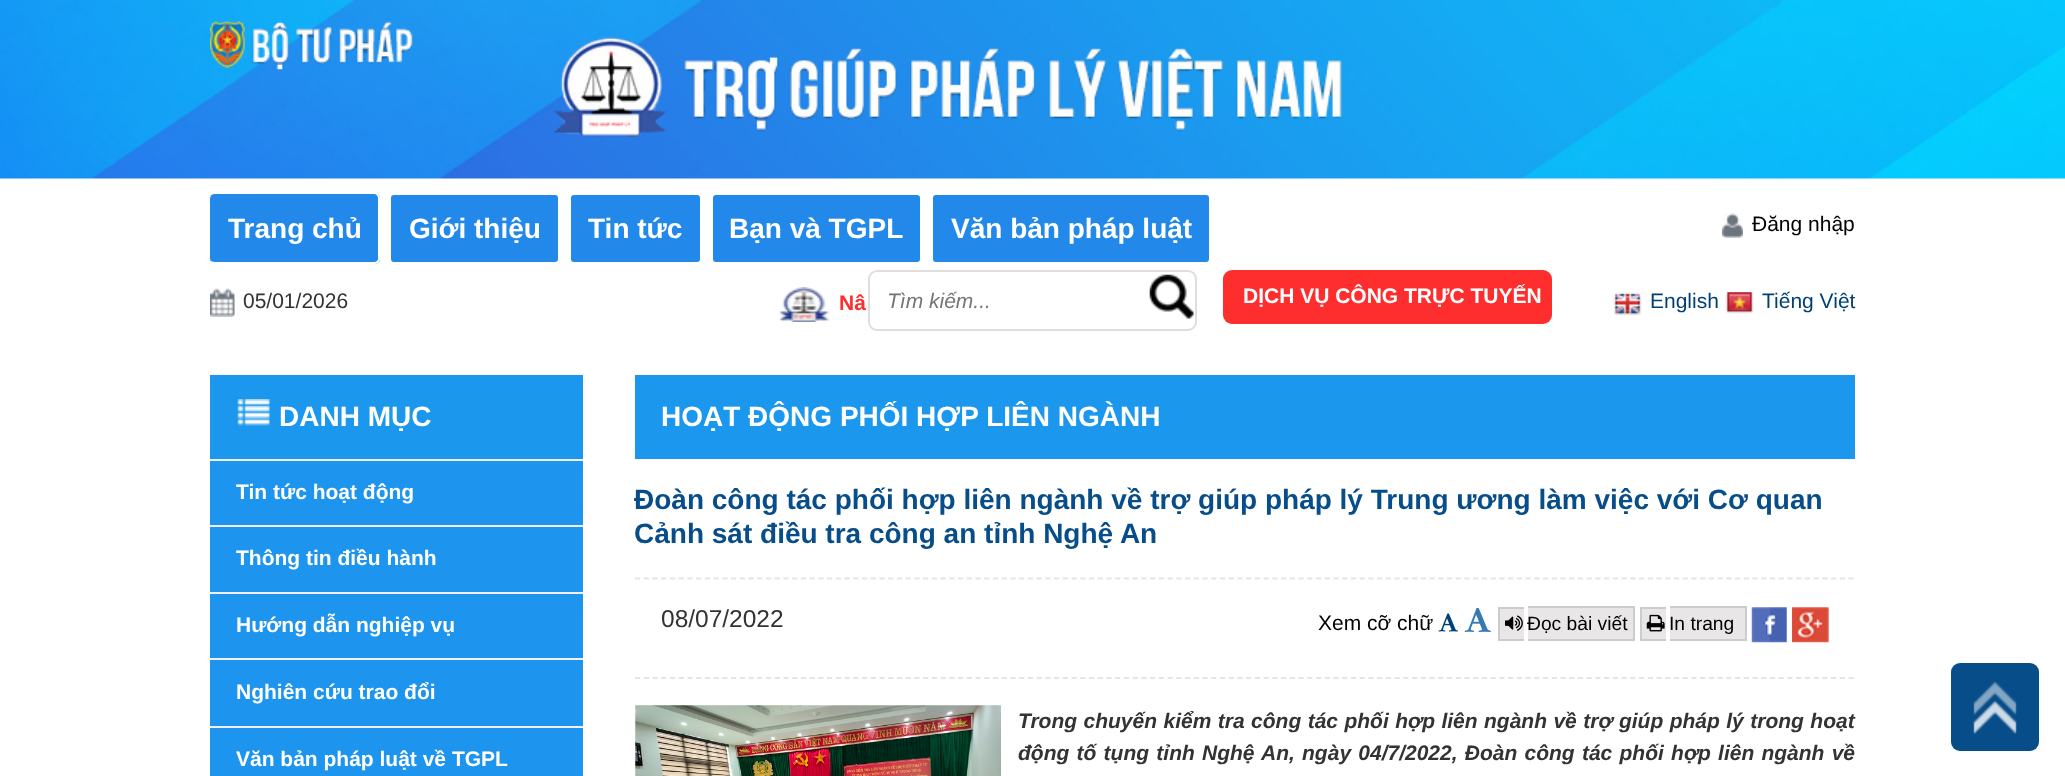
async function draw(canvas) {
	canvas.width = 2065;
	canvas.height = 776;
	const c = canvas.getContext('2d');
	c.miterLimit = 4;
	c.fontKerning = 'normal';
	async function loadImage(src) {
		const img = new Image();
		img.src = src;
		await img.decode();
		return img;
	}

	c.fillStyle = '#fff';
	c.fillRect(0, 0, 2065, 776);
	c.drawImage(await loadImage('img1.png'), 0, 0, 2065, 179);
	c.drawImage(await loadImage('img2.png'), 210, 21, 1132, 116);
	c.fillStyle = '#2289ea';
	c.beginPath();
	c.roundRect(210, 193, 170, 71, 5);
	c.fill();
	c.fillStyle = '#fff';
	c.beginPath();
	c.moveTo(215, 192);
	c.lineTo(374, 192);
	c.bezierCurveTo(377, 192, 380, 195, 380, 198);
	c.lineTo(380, 259);
	c.bezierCurveTo(380, 262, 377, 264, 374, 264);
	c.lineTo(215, 264);
	c.bezierCurveTo(212, 264, 210, 262, 210, 259);
	c.lineTo(210, 198);
	c.bezierCurveTo(210, 195, 212, 192, 215, 192);
	c.closePath();
	c.moveTo(215, 194);
	c.lineTo(374, 194);
	c.bezierCurveTo(376, 194, 378, 196, 378, 198);
	c.lineTo(378, 259);
	c.bezierCurveTo(378, 261, 376, 262, 374, 262);
	c.lineTo(215, 262);
	c.bezierCurveTo(212, 262, 210, 261, 210, 259);
	c.lineTo(210, 198);
	c.bezierCurveTo(210, 196, 212, 194, 215, 194);
	c.closePath();
	c.fill('evenodd');
	c.font = 'bold 28px Liberation Sans';
	c.fillText('Trang chủ', 228, 238);
	c.fillStyle = '#2289ea';
	c.beginPath();
	c.roundRect(390, 194, 169, 69, 4);
	c.fill();
	c.strokeStyle = '#fff';
	c.lineWidth = 2;
	c.stroke();
	c.fillStyle = '#fff';
	c.fillText('Giới thiệu', 409, 238);
	c.fillStyle = '#2289ea';
	c.beginPath();
	c.roundRect(570, 194, 131, 69, 4);
	c.fill();
	c.stroke();
	c.fillStyle = '#fff';
	c.fillText('Tin tức', 588, 238);
	c.fillStyle = '#2289ea';
	c.beginPath();
	c.roundRect(712, 194, 209, 69, 4);
	c.fill();
	c.stroke();
	c.fillStyle = '#fff';
	c.fillText('Bạn và TGPL', 729, 238);
	c.fillStyle = '#2289ea';
	c.beginPath();
	c.roundRect(932, 194, 278, 69, 4);
	c.fill();
	c.stroke();
	c.fillStyle = '#fff';
	c.fillText('Văn bản pháp luật', 951, 238);
	c.drawImage(await loadImage('img3.png'), 1722, 213, 21, 25);
	c.font = '21px Liberation Sans';
	c.fillStyle = '#000';
	c.fillText('Đăng nhập', 1752, 231);
	c.drawImage(await loadImage('img4.png'), 210, 288, 25, 29);
	c.fillStyle = '#333';
	c.fillText('05/01/2026', 243, 308);
	c.drawImage(await loadImage('img5.png'), 779, 287, 51, 35);
	c.font = 'bold 21px Liberation Sans';
	c.fillStyle = '#fe2e2e';
	c.fillText('Nâ', 839, 310);
	c.beginPath();
	c.roundRect(869, 271, 327, 59, 8);
	c.strokeStyle = '#dedede';
	c.stroke();
	c.font = 'italic 21px Liberation Sans';
	c.fillStyle = '#757575';
	c.fillText('Tìm kiếm...', 887, 308);
	c.drawImage(await loadImage('img6.png'), 1149, 274, 45, 45);
	c.fillStyle = '#fe2e2e';
	c.beginPath();
	c.roundRect(1223, 270, 329, 54, 9);
	c.fill();
	c.font = 'bold 21px Liberation Sans';
	c.fillStyle = '#fff';
	c.fillText('DỊCH VỤ CÔNG TRỰC TUYẾN', 1243, 303);
	c.drawImage(await loadImage('img7.png'), 1613, 292, 29, 23);
	c.font = '21px Liberation Sans';
	c.fillStyle = '#004175';
	c.fillText('English', 1650, 308);
	c.drawImage(await loadImage('img8.png'), 1725, 292, 29, 22);
	c.fillText('Tiếng Việt', 1762, 308);
	c.fillStyle = '#1b98ee';
	c.fillRect(210, 375, 373, 84);
	c.drawImage(await loadImage('img9.png'), 236, 399, 37, 28);
	c.font = 'bold 28px Liberation Sans';
	c.fillStyle = '#fff';
	c.fillText('DANH MỤC', 279, 426);
	c.fillStyle = '#1d94ed';
	c.fillRect(210, 461, 373, 315);
	c.fillStyle = '#f5eeee';
	c.fillRect(210, 459, 373, 2);
	c.font = 'bold 21px Liberation Sans';
	c.fillStyle = '#fff';
	c.fillText('Tin tức hoạt động', 236, 499);
	c.fillStyle = '#f5eeee';
	c.fillRect(210, 525, 373, 2);
	c.fillStyle = '#fff';
	c.fillText('Thông tin điều hành', 236, 565);
	c.fillStyle = '#f5eeee';
	c.fillRect(210, 592, 373, 2);
	c.fillStyle = '#fff';
	c.fillText('Hướng dẫn nghiệp vụ', 236, 632);
	c.fillStyle = '#f5eeee';
	c.fillRect(210, 658, 373, 2);
	c.fillStyle = '#fff';
	c.fillText('Nghiên cứu trao đổi', 236, 699);
	c.fillStyle = '#f5eeee';
	c.fillRect(210, 726, 373, 2);
	c.fillStyle = '#fff';
	c.fillText('Văn bản pháp luật về TGPL', 236, 766);
	c.fillStyle = '#1b98ee';
	c.fillRect(635, 375, 1220, 84);
	c.font = 'bold 28px Liberation Sans';
	c.fillStyle = '#fff';
	c.fillText('HOẠT ĐỘNG PHỐI HỢP LIÊN NGÀNH', 661, 426);
	c.fillStyle = '#074d89';
	c.fillText('Đoàn công tác phối hợp liên ngành về trợ giúp pháp lý Trung ương làm việc với Cơ quan', 634, 509);
	c.fillText('Cảnh sát điều tra công an tỉnh Nghệ An', 634, 543);
	c.beginPath();
	c.moveTo(635, 578.5);
	c.lineTo(1855, 578.5);
	c.strokeStyle = '#e5e5e5';
	c.lineWidth = 1.8;
	c.setLineDash([5.25, 3.48]);
	c.stroke();
	c.beginPath();
	c.moveTo(635, 678);
	c.lineTo(1855, 678);
	c.stroke();
	c.font = '24.5px Liberation Sans';
	c.fillStyle = '#333';
	c.fillText('08/07/2022', 661, 627);
	c.font = '21px Liberation Sans';
	c.fillStyle = '#000';
	c.fillText('Xem cỡ chữ', 1318, 630);
	c.drawImage(await loadImage('img10.png'), 1438, 613, 20, 19);
	c.drawImage(await loadImage('img11.png'), 1464, 608, 27, 24);
	for (const [x, y, w, h, color] of [
		[1500, 609, 24, 30, '#e8e6e7'],
		[1498, 607, 26, 2, '#ccc'],
		[1498, 639, 26, 2, '#ccc'],
		[1498, 607, 2, 34, '#ccc'],
		[1528, 608, 105, 31, '#e8e6e7'],
		[1528, 606, 107, 2, '#ccc'],
		[1633, 606, 2, 35, '#ccc'],
		[1528, 639, 107, 2, '#ccc'],
	]) {
		c.fillStyle = color;
		c.fillRect(x, y, w, h);
	}
	c.drawImage(await loadImage('img12.png'), 1505, 615, 18, 16);
	c.font = '19.25px Liberation Sans';
	c.fillStyle = '#000';
	c.fillText('Đọc bài viết', 1527, 630);
	for (const [x, y, w, h, color] of [
		[1642, 609, 24, 30, '#e8e6e7'],
		[1640, 607, 26, 2, '#ccc'],
		[1640, 639, 26, 2, '#ccc'],
		[1640, 607, 2, 34, '#ccc'],
		[1670, 608, 75, 31, '#e8e6e7'],
		[1670, 606, 77, 2, '#ccc'],
		[1745, 606, 2, 35, '#ccc'],
		[1670, 639, 77, 2, '#ccc'],
	]) {
		c.fillStyle = color;
		c.fillRect(x, y, w, h);
	}
	c.drawImage(await loadImage('img13.png'), 1646, 614, 19, 18);
	c.fillStyle = '#000';
	c.fillText('In trang', 1669, 630);
	c.drawImage(await loadImage('img14.png'), 1751, 607, 36, 36);
	c.drawImage(await loadImage('img15.png'), 1792, 607, 37, 36);
	c.drawImage(await loadImage('img16.png'), 635, 705, 366, 71);
	c.wordSpacing = '0.6px';
	c.font = 'italic bold 21px Liberation Sans';
	c.fillStyle = '#333';
	c.fillText('Trong chuyến kiểm tra công tác phối hợp liên ngành về trợ giúp pháp lý trong hoạt', 1018, 728);
	c.wordSpacing = '1.4px';
	c.fillText('động tố tụng tỉnh Nghệ An, ngày 04/7/2022, Đoàn công tác phối hợp liên ngành về', 1018, 760);
	c.fillStyle = '#074d89';
	c.beginPath();
	c.roundRect(1951, 663, 88, 88, 9);
	c.fill();
	c.drawImage(await loadImage('img17.png'), 1973, 682, 44, 52);
}

draw(document.querySelector('canvas'));
